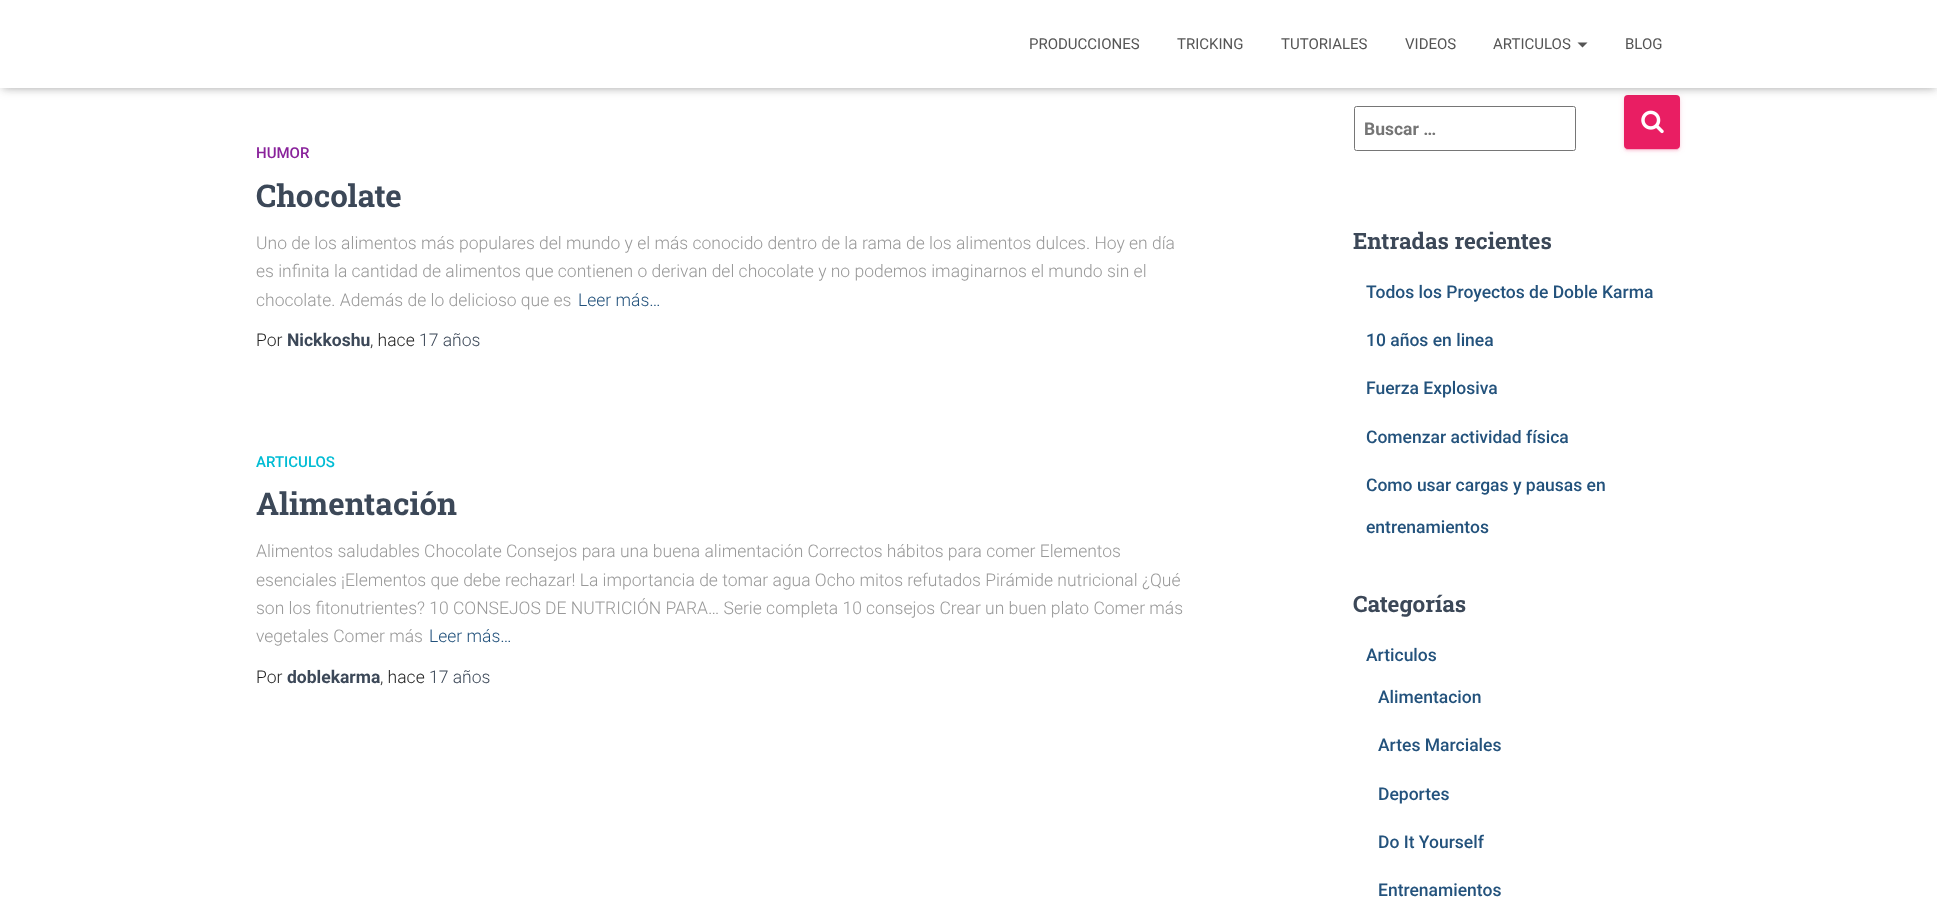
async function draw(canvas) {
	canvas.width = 1937;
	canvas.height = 906;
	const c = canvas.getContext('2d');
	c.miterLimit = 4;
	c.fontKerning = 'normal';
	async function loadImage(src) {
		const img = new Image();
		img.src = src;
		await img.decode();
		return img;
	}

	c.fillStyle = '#fff';
	c.fillRect(0, 0, 1937, 906);
	c.fillStyle = '#e91e631f';
	c.filter = 'blur(3px)';
	c.beginPath();
	c.roundRect(1624, 96, 56, 54, 4);
	c.fill();
	c.filter = 'none';
	c.fillStyle = '#e91e6333';
	c.filter = 'blur(0.5px)';
	c.beginPath();
	c.roundRect(1626, 101, 52, 49, 1);
	c.fill();
	c.filter = 'none';
	c.fillStyle = '#e91e6324';
	c.filter = 'blur(1px)';
	c.beginPath();
	c.roundRect(1624, 98, 56, 53, 4);
	c.fill();
	c.filter = 'none';
	c.fillStyle = '#e91e63';
	c.beginPath();
	c.roundRect(1624, 95, 56, 54, 4);
	c.fill();
	c.fillStyle = '#0000001a';
	c.filter = 'blur(3px)';
	c.beginPath();
	c.rect(3, 8, 1932, 82);
	c.fill();
	c.filter = 'none';
	c.beginPath();
	c.roundRect(1354.5, 106.5, 221, 44, 2);
	c.strokeStyle = '#767676';
	c.stroke();
	c.fillStyle = '#0000001f';
	c.filter = 'blur(6px)';
	c.beginPath();
	c.rect(0, 1, 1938, 88);
	c.fill();
	c.filter = 'none';
	c.fillStyle = '#0000006b';
	c.filter = 'blur(6px)';
	c.beginPath();
	c.rect(8, 9, 1922, 72);
	c.fill();
	c.filter = 'none';
	c.fillStyle = '#fff';
	c.fillRect(0, 0, 1937, 88);
	c.font = '15px Roboto';
	c.fillStyle = '#555';
	for (const [text, x, y] of [
		['PRODUCCIONES', 1029, 49],
		['TRICKING', 1177, 49],
		['TUTORIALES', 1281, 49],
		['VIDEOS', 1405, 49],
		['ARTICULOS', 1493, 49],
	]) {
		c.fillText(text, x, y);
	}
	c.beginPath();
	c.moveTo(1577.5, 42.5);
	c.lineTo(1587.5, 42.5);
	c.lineTo(1582.5, 47.5);
	c.closePath();
	c.fill();
	c.fillText('BLOG', 1625, 49);
	c.font = '500 15px Roboto';
	c.fillStyle = '#89229b';
	c.fillText('HUMOR', 256, 158);
	c.font = 'bold 31.25px Roboto Slab';
	c.fillStyle = '#3c4858';
	c.fillText('Chocolate', 256, 207);
	c.font = '300 17.5px Roboto';
	c.fillStyle = '#999';
	for (const [text, x, y] of [
		['Uno de los alimentos más populares del mundo y el más conocido dentro de la rama de los alimentos dulces. Hoy en día', 256, 249],
		['es infinita la cantidad de alimentos que contienen o derivan del chocolate y no podemos imaginarnos el mundo sin el', 256, 277],
		['chocolate. Además de lo delicioso que es', 256, 306],
	]) {
		c.fillText(text, x, y);
	}
	c.fillStyle = '#23527c';
	c.fillText('Leer más…', 578, 306);
	c.fillStyle = '#212121';
	c.fillText('Por', 256, 346);
	c.font = 'bold 17.5px Roboto';
	c.fillStyle = '#3c4858';
	c.fillText('Nickkoshu', 287, 346);
	c.font = '300 17.5px Roboto';
	c.fillStyle = '#212121';
	c.fillText(', hace', 370, 346);
	c.fillStyle = '#3c4858';
	c.fillText('17 años', 419, 346);
	c.font = '500 15px Roboto';
	c.fillStyle = '#00bcd4';
	c.fillText('ARTICULOS', 256, 467);
	c.font = 'bold 31.25px Roboto Slab';
	c.fillStyle = '#3c4858';
	c.fillText('Alimentación', 256, 515);
	c.font = '300 17.5px Roboto';
	c.fillStyle = '#999';
	for (const [text, x, y] of [
		['Alimentos saludables Chocolate Consejos para una buena alimentación Correctos hábitos para comer Elementos', 256, 557],
		['esenciales ¡Elementos que debe rechazar! La importancia de tomar agua Ocho mitos refutados Pirámide nutricional ¿Qué', 256, 586],
		['son los fitonutrientes? 10 CONSEJOS DE NUTRICIÓN PARA… Serie completa 10 consejos Crear un buen plato Comer más', 256, 614],
		['vegetales Comer más', 256, 642],
	]) {
		c.fillText(text, x, y);
	}
	c.fillStyle = '#23527c';
	c.fillText('Leer más…', 429, 642);
	c.fillStyle = '#212121';
	c.fillText('Por', 256, 683);
	c.font = 'bold 17.5px Roboto';
	c.fillStyle = '#3c4858';
	c.fillText('doblekarma', 287, 683);
	c.font = '300 17.5px Roboto';
	c.fillStyle = '#212121';
	c.fillText(', hace', 380, 683);
	c.fillStyle = '#3c4858';
	c.fillText('17 años', 429, 683);
	c.font = 'bold 17.5px Roboto';
	c.fillStyle = '#757575';
	c.fillText('Buscar …', 1364, 135);
	c.drawImage(await loadImage('img1.png'), 1641, 110, 23, 24);
	c.font = 'bold 22.5px Roboto Slab';
	c.fillStyle = '#3c4858';
	c.fillText('Entradas recientes', 1353, 249);
	c.font = '500 17.5px Roboto';
	c.fillStyle = '#23527c';
	for (const [text, x, y] of [
		['Todos los Proyectos de Doble Karma', 1366, 298],
		['10 años en linea', 1366, 346],
		['Fuerza Explosiva', 1366, 394],
		['Comenzar actividad física', 1366, 443],
		['Como usar cargas y pausas en', 1366, 491],
		['entrenamientos', 1366, 533],
	]) {
		c.fillText(text, x, y);
	}
	c.font = 'bold 22.5px Roboto Slab';
	c.fillStyle = '#3c4858';
	c.fillText('Categorías', 1353, 612);
	c.font = '500 17.5px Roboto';
	c.fillStyle = '#23527c';
	for (const [text, x, y] of [
		['Articulos', 1366, 661],
		['Alimentacion', 1378, 703],
		['Artes Marciales', 1378, 751],
		['Deportes', 1378, 800],
		['Do It Yourself', 1378, 848],
		['Entrenamientos', 1378, 896],
	]) {
		c.fillText(text, x, y);
	}
}

draw(document.querySelector('canvas'));
